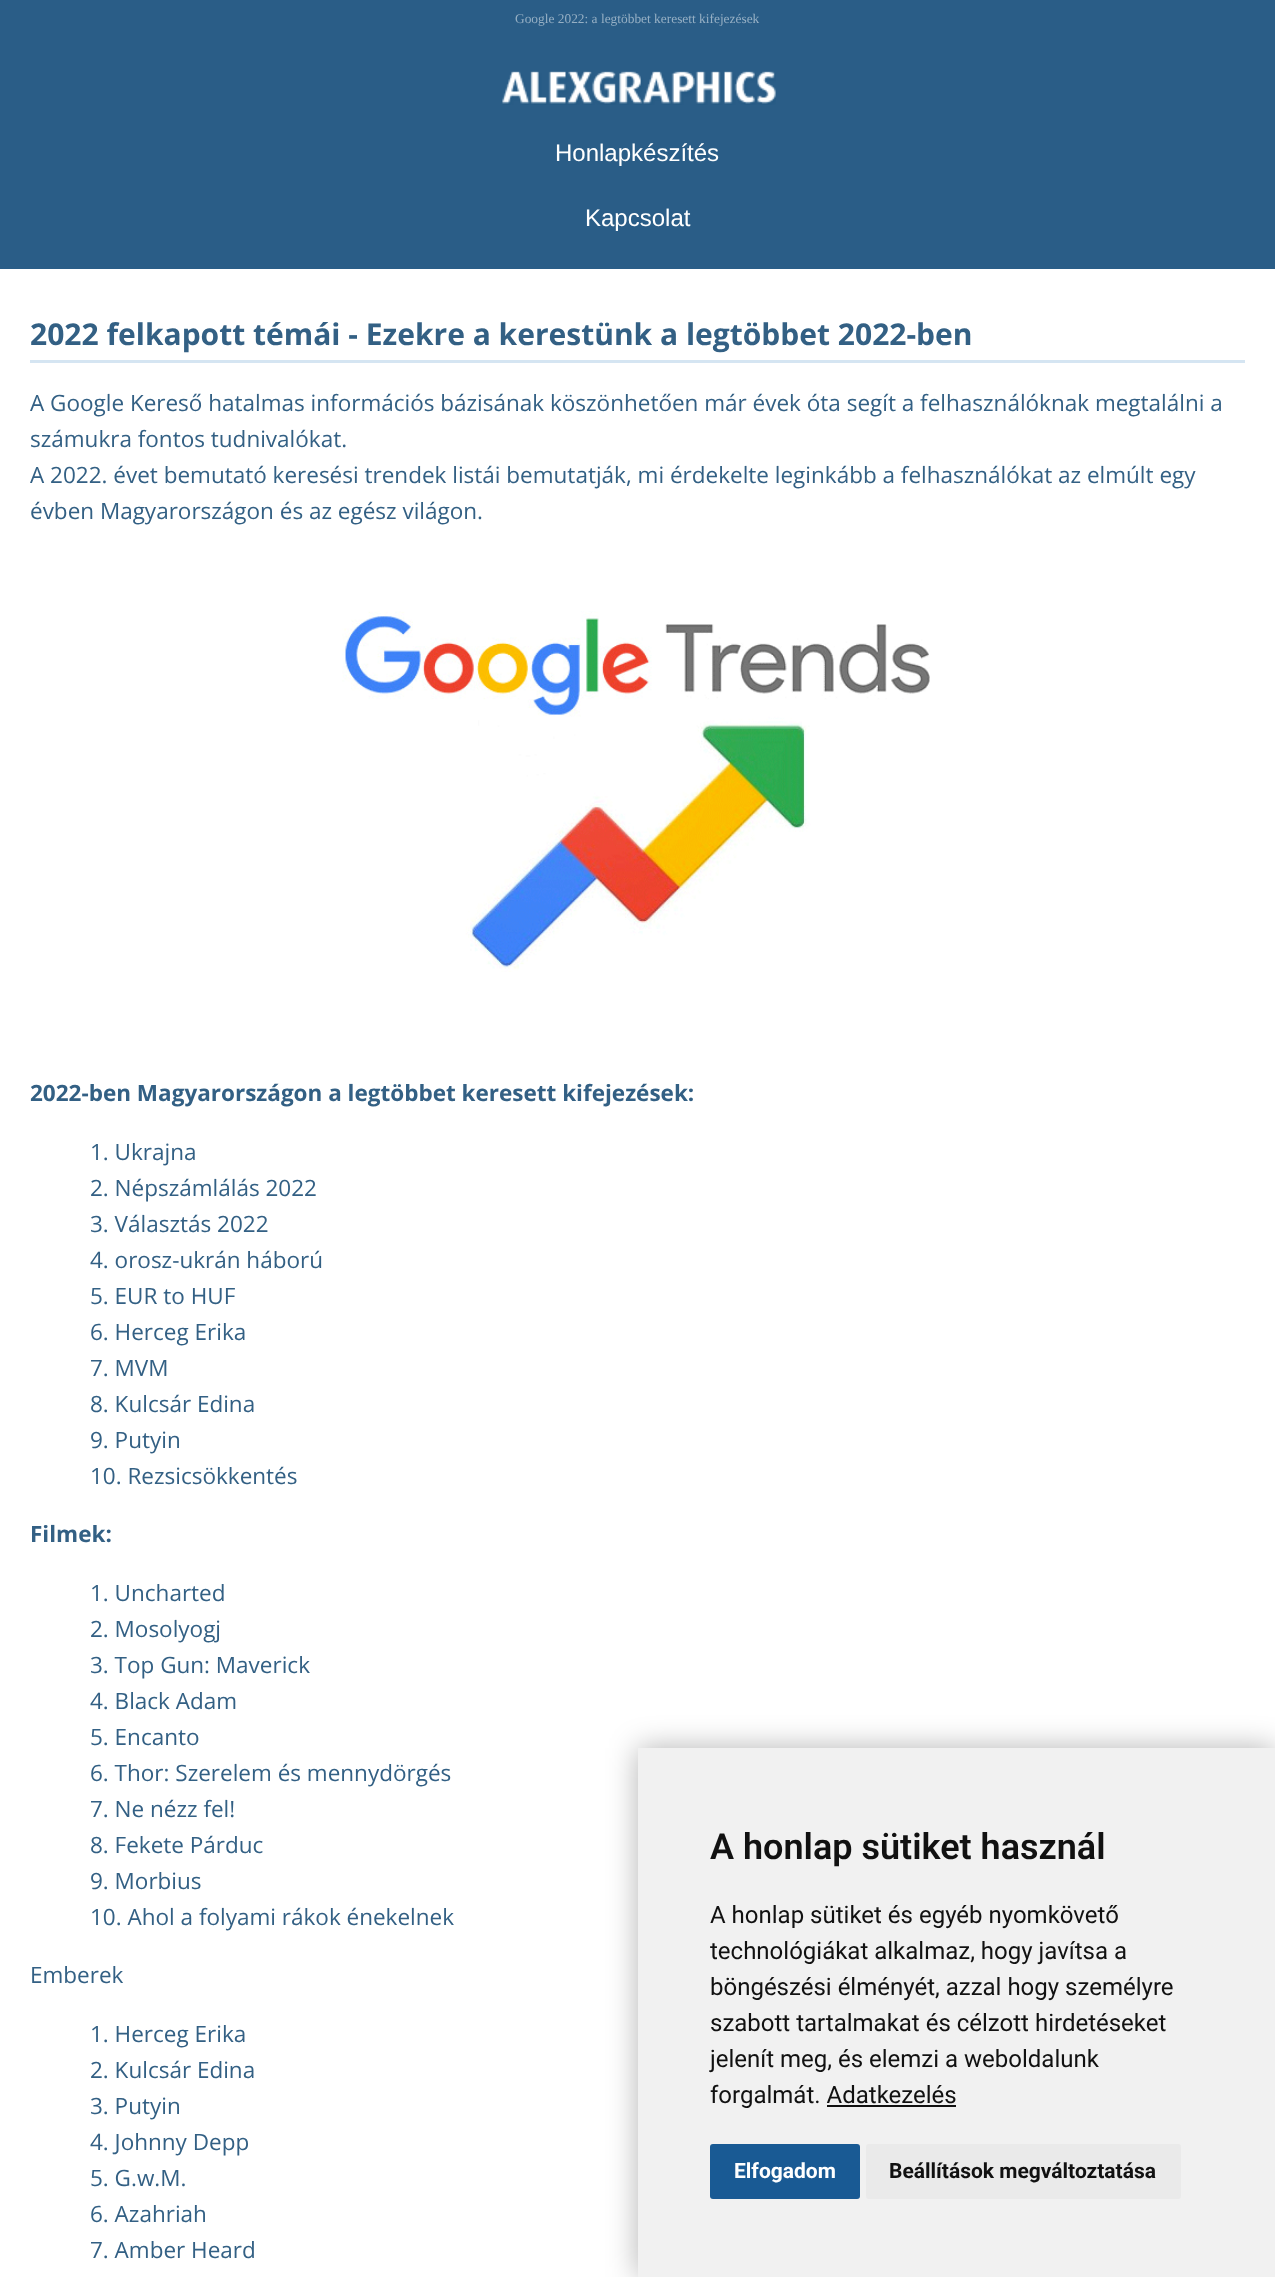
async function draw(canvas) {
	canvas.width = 1275;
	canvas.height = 2277;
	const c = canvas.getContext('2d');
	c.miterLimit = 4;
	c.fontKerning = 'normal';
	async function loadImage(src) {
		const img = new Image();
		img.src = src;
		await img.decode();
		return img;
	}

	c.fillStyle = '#2a5d87';
	c.fillRect(0, 0, 1275, 2277);
	c.font = '13.4px Liberation Serif';
	c.fillStyle = '#95afc4';
	c.fillText('Google 2022: a legtöbbet keresett kifejezések', 515, 23);
	c.drawImage(await loadImage('img1.png'), 502, 71, 274, 34);
	c.font = '24px Liberation Sans';
	c.fillStyle = '#fff';
	c.fillText('Honlapkészítés', 555, 161);
	c.fillText('Kapcsolat', 585, 226);
	c.fillRect(0, 269, 1275, 2008);
	c.fillStyle = '#d5e5f2';
	c.fillRect(30, 360, 1215, 3);
	c.font = 'bold 30px Open Sans';
	c.fillStyle = '#336084';
	c.fillText('2022 felkapott témái - Ezekre a kerestünk a legtöbbet 2022-ben', 30, 345);
	c.font = '22.5px Open Sans';
	for (const [text, x, y] of [
		['A Google Kereső hatalmas információs bázisának köszönhetően már évek óta segít a felhasználóknak megtalálni a', 30, 411],
		['számukra fontos tudnivalókat.', 30, 447],
		['A 2022. évet bemutató keresési trendek listái bemutatják, mi érdekelte leginkább a felhasználókat az elmúlt egy', 30, 483],
		['évben Magyarországon és az egész világon.', 30, 519],
	]) {
		c.fillText(text, x, y);
	}
	c.drawImage(await loadImage('img2.png'), 342, 611, 588, 361);
	c.font = 'bold 22.5px Open Sans';
	c.fillText('2022-ben Magyarországon a legtöbbet keresett kifejezések:', 30, 1101);
	c.font = '22.5px Open Sans';
	for (const [text, x, y] of [
		['1. Ukrajna', 90, 1160],
		['2. Népszámlálás 2022', 90, 1196],
		['3. Választás 2022', 90, 1232],
		['4. orosz-ukrán háború', 90, 1268],
		['5. EUR to HUF', 90, 1304],
		['6. Herceg Erika', 90, 1340],
		['7. MVM', 90, 1376],
		['8. Kulcsár Edina', 90, 1412],
		['9. Putyin', 90, 1448],
		['10. Rezsicsökkentés', 90, 1484],
	]) {
		c.fillText(text, x, y);
	}
	c.font = 'bold 22.5px Open Sans';
	c.fillText('Filmek:', 30, 1542);
	c.font = '22.5px Open Sans';
	for (const [text, x, y] of [
		['1. Uncharted', 90, 1601],
		['2. Mosolyogj', 90, 1637],
		['3. Top Gun: Maverick', 90, 1673],
		['4. Black Adam', 90, 1709],
		['5. Encanto', 90, 1745],
		['6. Thor: Szerelem és mennydörgés', 90, 1781],
		['7. Ne nézz fel!', 90, 1817],
		['8. Fekete Párduc', 90, 1853],
		['9. Morbius', 90, 1889],
		['10. Ahol a folyami rákok énekelnek', 90, 1925],
		['Emberek', 30, 1983],
		['1. Herceg Erika', 90, 2042],
		['2. Kulcsár Edina', 90, 2078],
		['3. Putyin', 90, 2114],
		['4. Johnny Depp', 90, 2150],
		['5. G.w.M.', 90, 2186],
		['6. Azahriah', 90, 2222],
		['7. Amber Heard', 90, 2258],
	]) {
		c.fillText(text, x, y);
	}
	c.fillStyle = '#0000004d';
	c.filter = 'blur(15px)';
	c.beginPath();
	c.rect(638, 1748, 637, 529);
	c.fill();
	c.filter = 'none';
	c.fillStyle = '#f1f1f1';
	c.fillRect(638, 1748, 637, 529);
	c.font = '600 36px Roboto';
	c.fillStyle = '#111';
	c.fillText('A honlap sütiket használ', 710, 1859);
	c.font = '24px Roboto';
	for (const [text, x, y] of [
		['A honlap sütiket és egyéb nyomkövető', 710, 1923],
		['technológiákat alkalmaz, hogy javítsa a', 710, 1959],
		['böngészési élményét, azzal hogy személyre', 710, 1995],
		['szabott tartalmakat és célzott hirdetéseket', 710, 2031],
		['jelenít meg, és elemzi a weboldalunk', 710, 2067],
		['forgalmát. Adatkezelés', 710, 2103],
	]) {
		c.fillText(text, x, y);
	}
	c.fillRect(827, 2105, 129, 2);
	c.fillStyle = '#195a94';
	c.beginPath();
	c.roundRect(710, 2144, 150, 55, 3);
	c.fill();
	c.font = 'bold 21px Roboto';
	c.fillStyle = '#fff';
	c.fillText('Elfogadom', 734, 2178);
	c.fillStyle = '#eaeaea';
	c.beginPath();
	c.roundRect(866, 2144, 315, 55, 3);
	c.fill();
	c.fillStyle = '#111';
	c.fillText('Beállítások megváltoztatása', 889, 2178);
}

draw(document.querySelector('canvas'));
